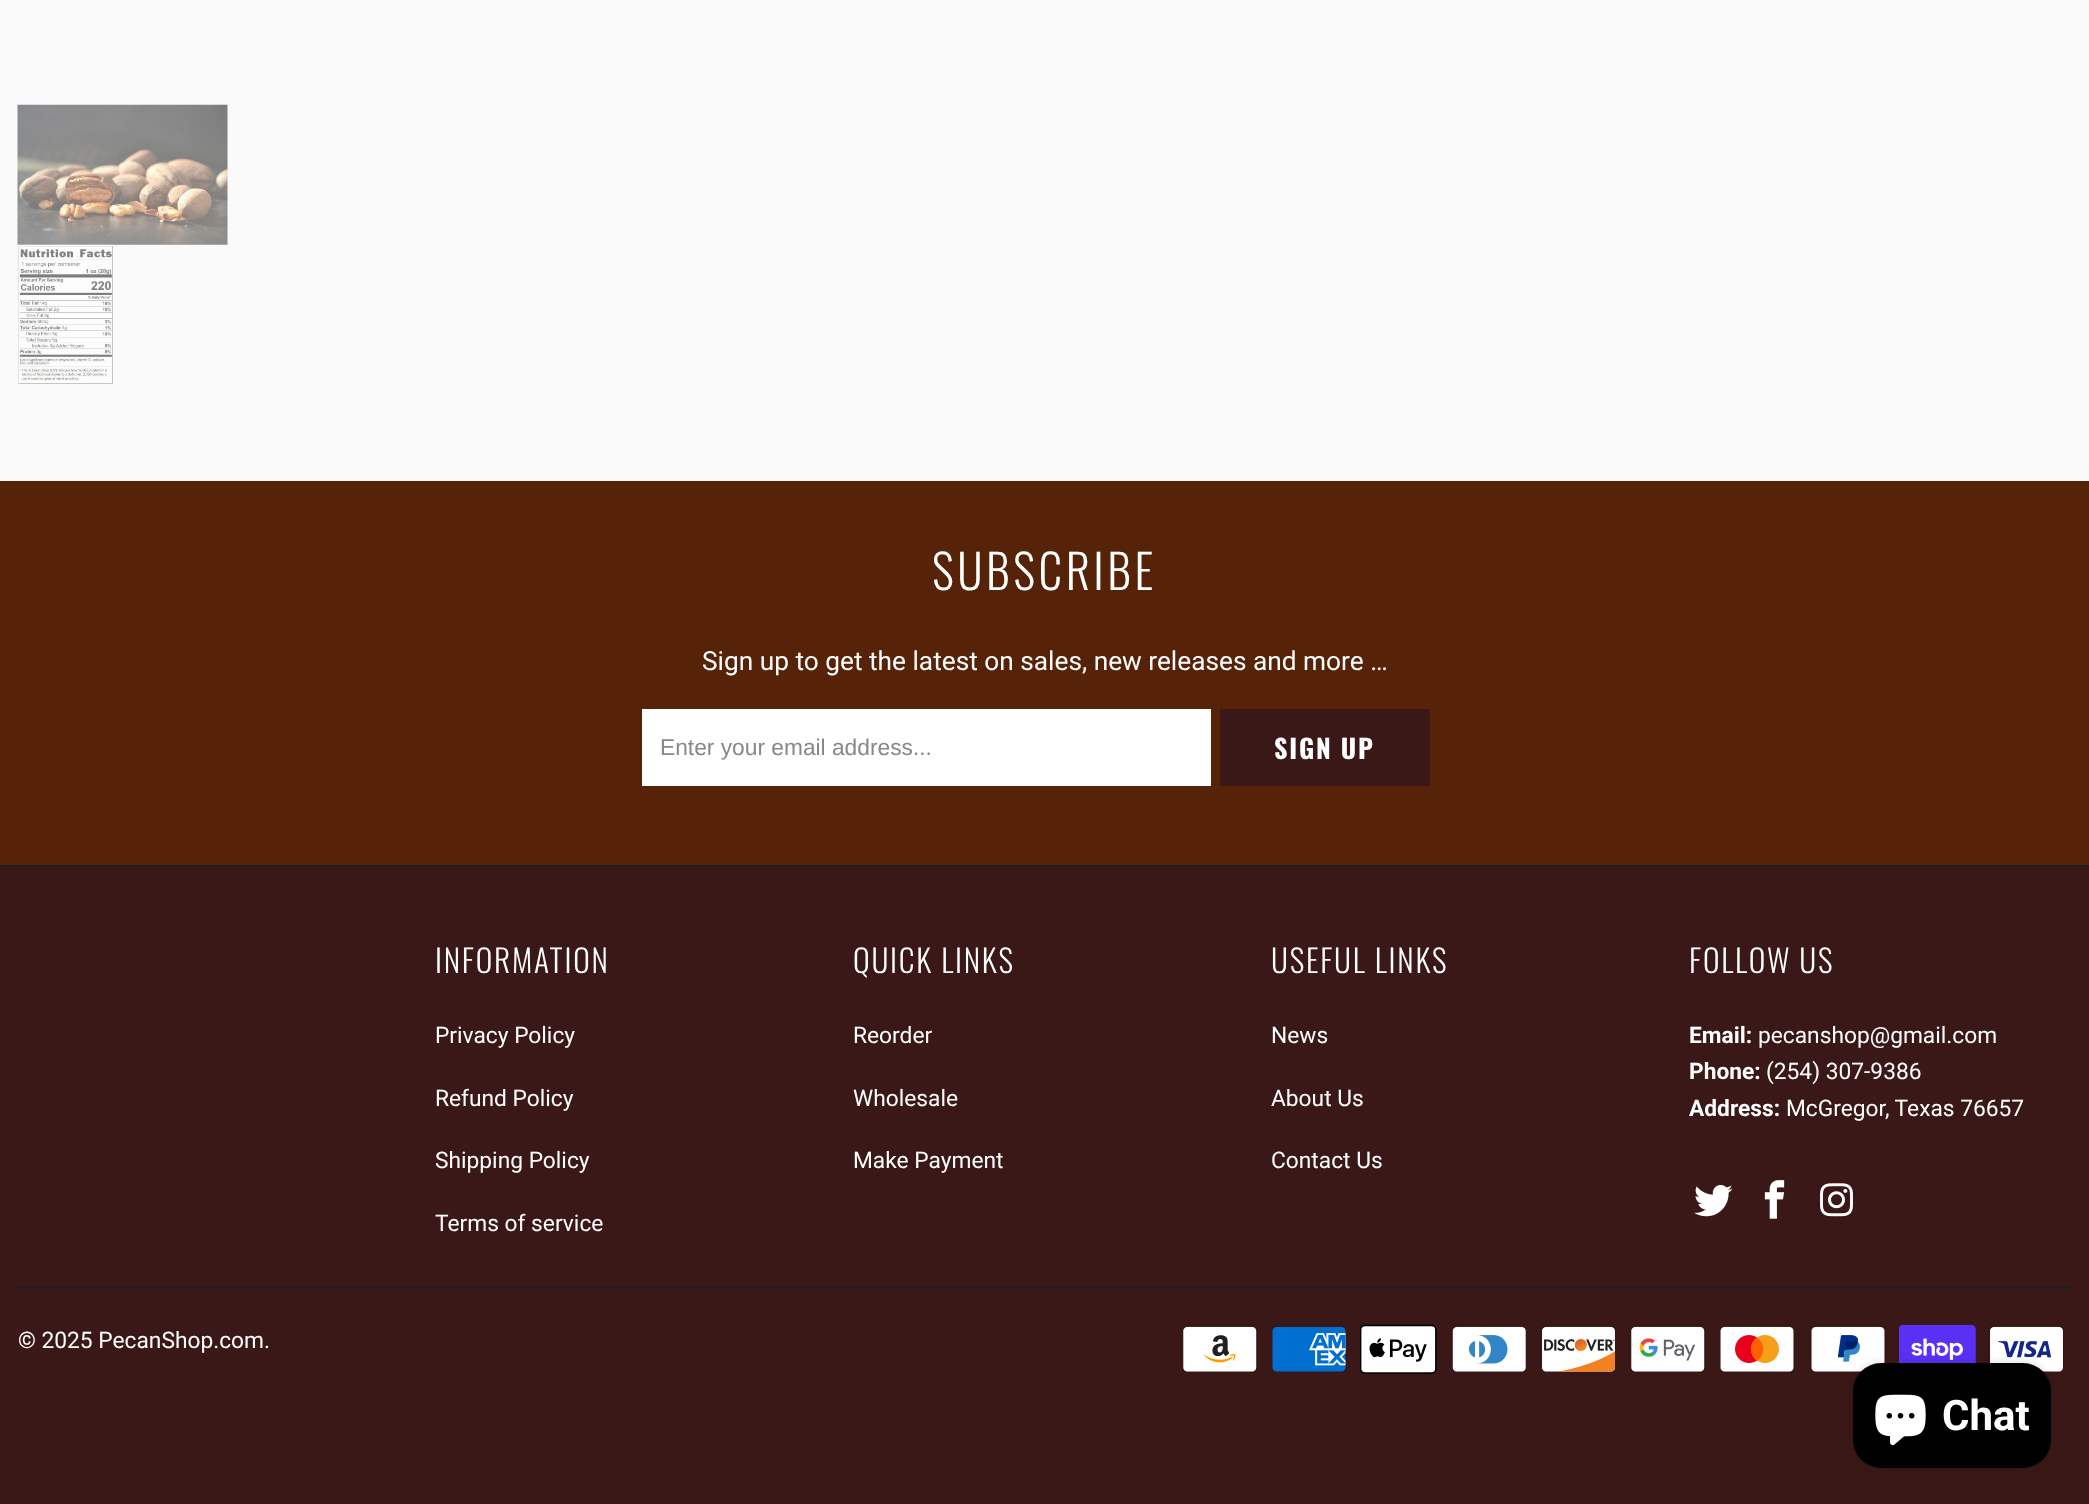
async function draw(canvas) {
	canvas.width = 2089;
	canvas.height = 1504;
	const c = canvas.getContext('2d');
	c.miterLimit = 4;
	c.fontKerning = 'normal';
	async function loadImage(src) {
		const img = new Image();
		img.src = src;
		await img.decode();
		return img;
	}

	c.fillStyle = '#fafafa';
	c.fillRect(0, 0, 2089, 1504);
	c.drawImage(await loadImage('img1.png'), 17, 104, 211, 141);
	c.drawImage(await loadImage('img2.png'), 18, 244, 96, 140);
	c.fillStyle = '#562308';
	c.fillRect(0, 481, 2089, 384);
	c.letterSpacing = '3.5px';
	c.font = '300 47.25px Oswald';
	c.fillStyle = '#fff';
	c.fillText('SUBSCRIBE', 932, 590);
	c.letterSpacing = '0px';
	c.font = '26.25px Roboto';
	c.fillText('Sign up to get the latest on sales, new releases and more …', 702, 670);
	c.fillRect(642, 709, 569, 77);
	c.font = '22.75px Liberation Sans';
	c.fillStyle = '#888';
	c.fillText('Enter your email address...', 660, 755);
	c.fillStyle = '#3b1818';
	c.fillRect(1220, 709, 210, 77);
	c.letterSpacing = '1.75px';
	c.font = 'bold 26.25px Oswald';
	c.fillStyle = '#fff';
	c.fillText('SIGN UP', 1274, 759);
	c.fillStyle = '#3b1818';
	c.fillRect(0, 867, 2089, 637);
	c.fillStyle = '#1b1f23';
	c.fillRect(0, 865, 2089, 2);
	c.font = '300 31.5px Oswald';
	c.fillStyle = '#fff';
	c.fillText('INFORMATION', 435, 973);
	c.letterSpacing = '0px';
	c.font = '22.75px Roboto';
	for (const [text, x, y] of [
		['Privacy Policy', 435, 1043],
		['Refund Policy', 435, 1106],
		['Shipping Policy', 435, 1168],
		['Terms of service', 435, 1231],
	]) {
		c.fillText(text, x, y);
	}
	c.letterSpacing = '1.75px';
	c.font = '300 31.5px Oswald';
	c.fillText('QUICK LINKS', 853, 973);
	c.letterSpacing = '0px';
	c.font = '22.75px Roboto';
	for (const [text, x, y] of [
		['Reorder', 853, 1043],
		['Wholesale', 853, 1106],
		['Make Payment', 853, 1168],
	]) {
		c.fillText(text, x, y);
	}
	c.letterSpacing = '1.75px';
	c.font = '300 31.5px Oswald';
	c.fillText('USEFUL LINKS', 1271, 973);
	c.letterSpacing = '0px';
	c.font = '22.75px Roboto';
	for (const [text, x, y] of [
		['News', 1271, 1043],
		['About Us', 1271, 1106],
		['Contact Us', 1271, 1168],
	]) {
		c.fillText(text, x, y);
	}
	c.letterSpacing = '1.75px';
	c.font = '300 31.5px Oswald';
	c.fillText('FOLLOW US', 1689, 973);
	c.letterSpacing = '0px';
	c.font = 'bold 22.75px Roboto';
	c.fillText('Email:', 1689, 1043);
	c.font = '22.75px Roboto';
	c.fillText('pecanshop@gmail.com', 1758, 1043);
	c.font = 'bold 22.75px Roboto';
	c.fillText('Phone:', 1689, 1079);
	c.font = '22.75px Roboto';
	c.fillText('(254) 307-9386', 1766, 1079);
	c.font = 'bold 22.75px Roboto';
	c.fillText('Address:', 1689, 1116);
	c.font = '22.75px Roboto';
	c.fillText('McGregor, Texas 76657', 1786, 1116);
	c.drawImage(await loadImage('img3.png'), 1694, 1185, 39, 32);
	c.drawImage(await loadImage('img4.png'), 1764, 1180, 21, 39);
	c.drawImage(await loadImage('img5.png'), 1820, 1183, 33, 34);
	c.fillStyle = '#1b1f23';
	c.fillRect(18, 1286, 2054, 2);
	c.fillStyle = '#fff';
	c.fillText('© 2025 PecanShop.com', 18, 1348);
	c.fillText('.', 264, 1348);
	c.drawImage(await loadImage('img6.png'), 1182, 1325, 76, 48);
	c.drawImage(await loadImage('img7.png'), 1271, 1325, 76, 48);
	c.drawImage(await loadImage('img8.png'), 1360, 1324, 77, 50);
	c.drawImage(await loadImage('img9.png'), 1451, 1325, 76, 48);
	c.drawImage(await loadImage('img10.png'), 1540, 1325, 77, 48);
	c.drawImage(await loadImage('img11.png'), 1630, 1325, 76, 48);
	c.drawImage(await loadImage('img12.png'), 1719, 1325, 76, 48);
	c.drawImage(await loadImage('img13.png'), 1810, 1325, 76, 48);
	c.drawImage(await loadImage('img14.png'), 1899, 1324, 77, 39);
	c.drawImage(await loadImage('img15.png'), 1988, 1325, 77, 48);
	c.fillStyle = '#00000026';
	c.filter = 'blur(4.5px)';
	c.beginPath();
	c.roundRect(1853, 1363, 198, 105, 28);
	c.fill();
	c.filter = 'none';
	c.fillStyle = '#000';
	c.beginPath();
	c.roundRect(1853, 1363, 198, 105, 28);
	c.fill();
	c.drawImage(await loadImage('img16.png'), 1875, 1394, 51, 52);
	c.font = 'bold 42px Roboto';
	c.fillStyle = '#fff';
	c.fillText('Chat', 1942, 1430);
}

draw(document.querySelector('canvas'));
